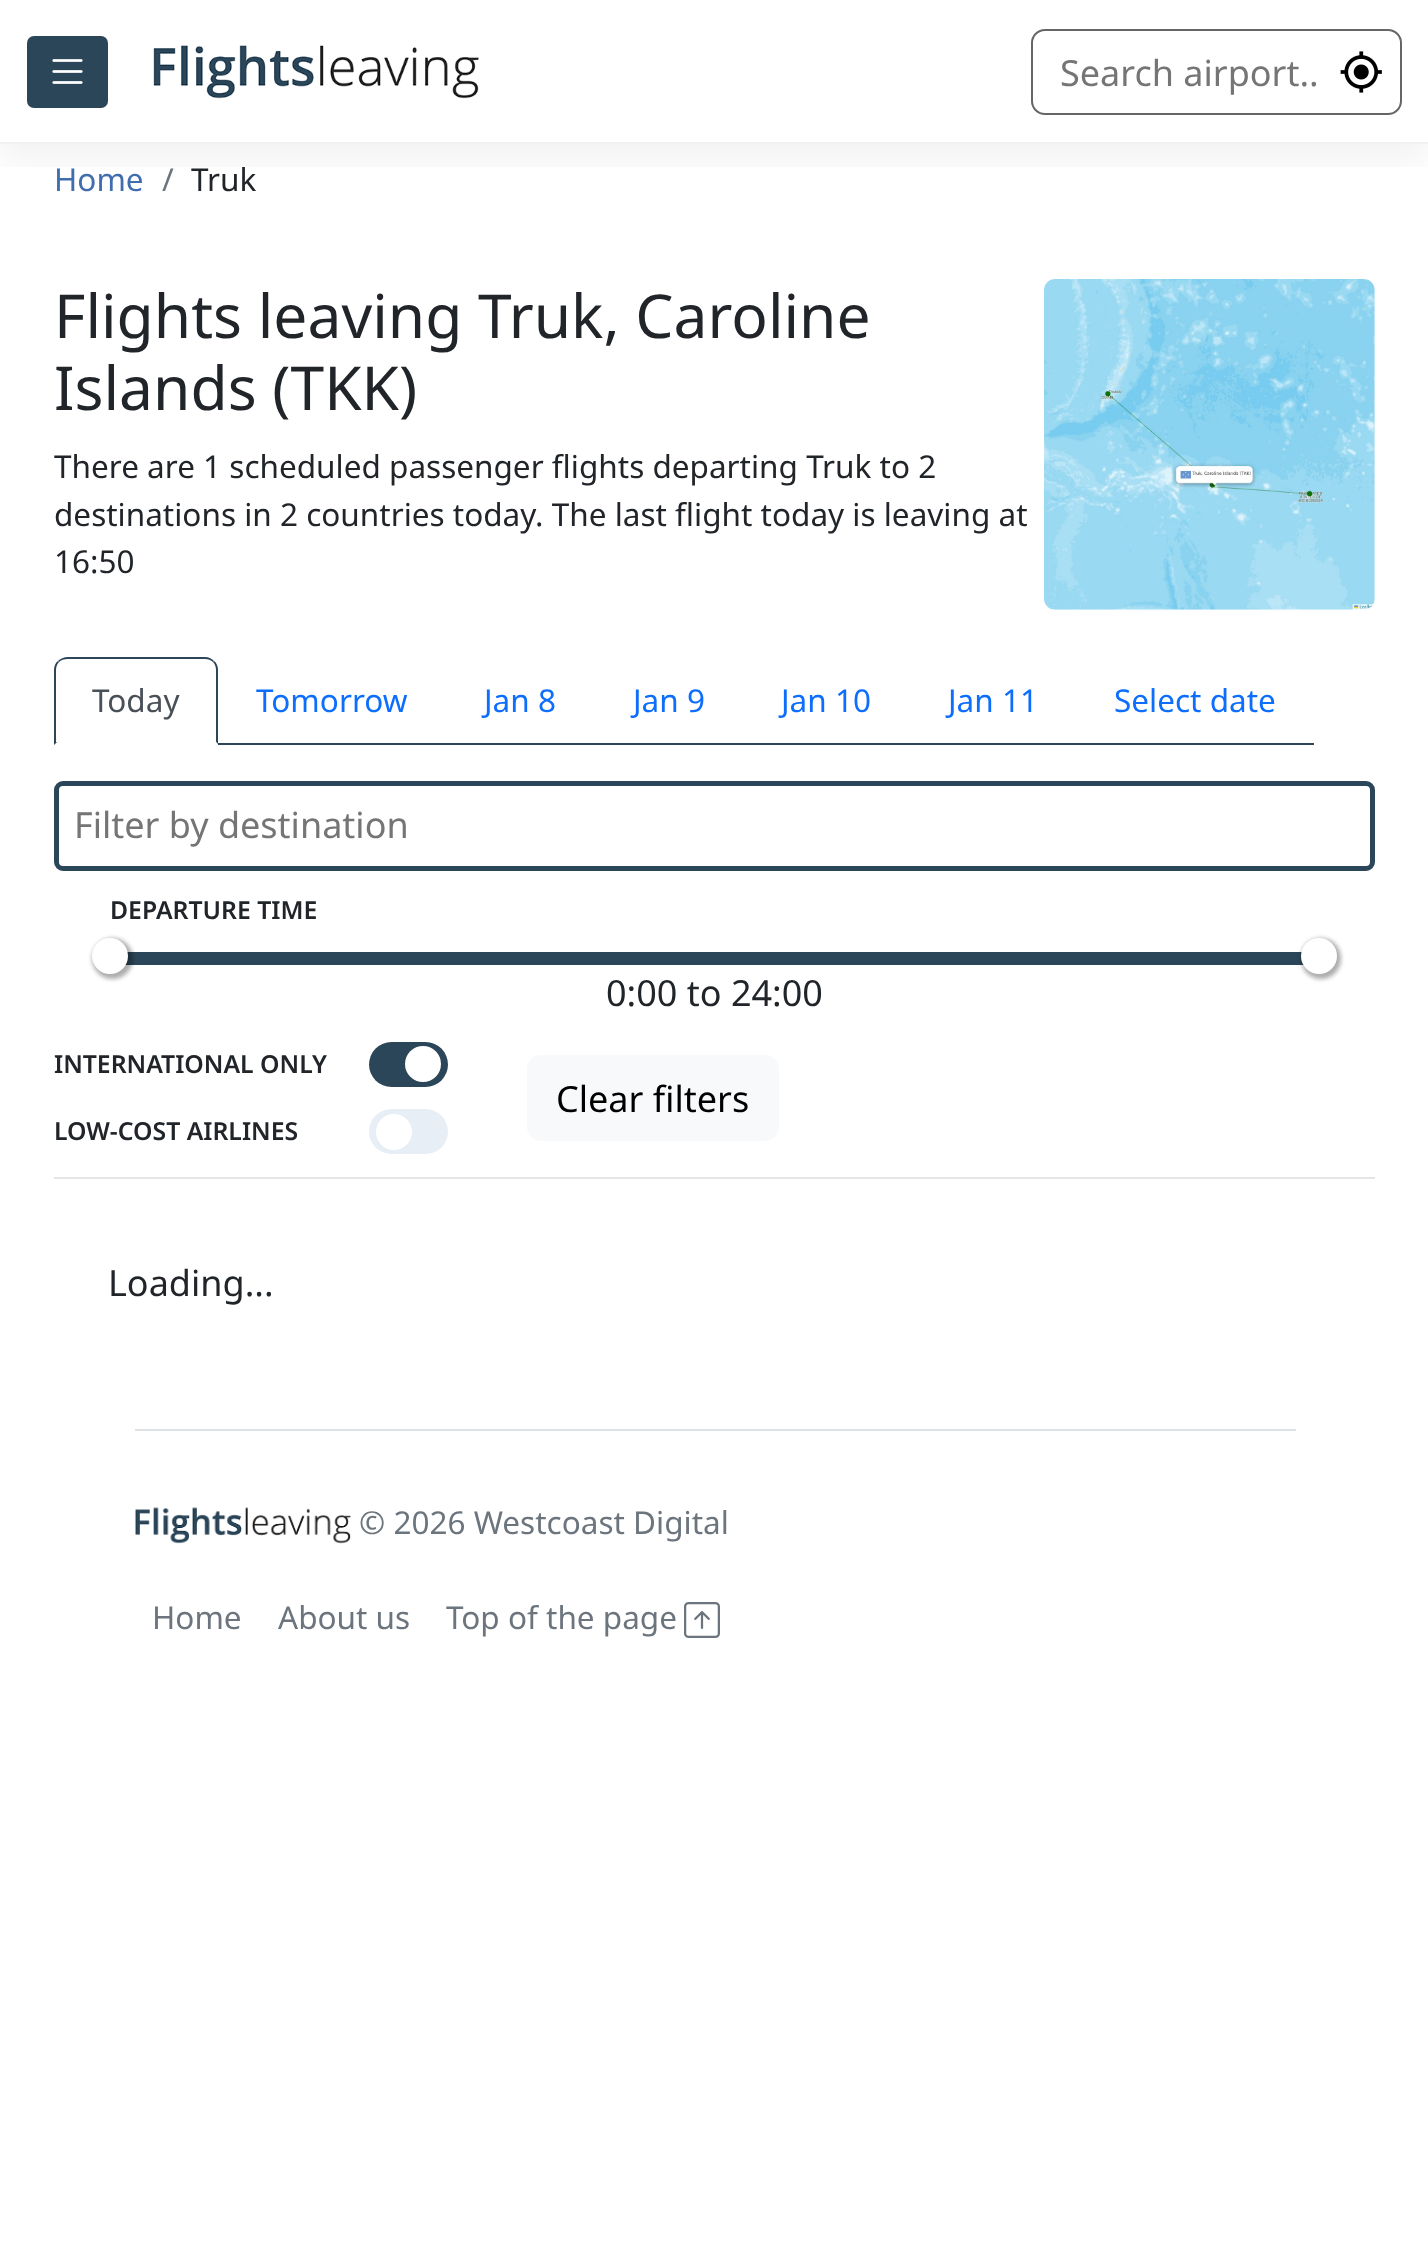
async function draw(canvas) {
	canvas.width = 1428;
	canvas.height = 2268;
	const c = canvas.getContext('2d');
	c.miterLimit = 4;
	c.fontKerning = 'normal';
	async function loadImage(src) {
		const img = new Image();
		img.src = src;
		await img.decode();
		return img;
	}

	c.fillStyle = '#fff';
	c.fillRect(0, 0, 1428, 2268);
	c.save();
	c.beginPath();
	c.rect(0, 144, 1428, 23);
	c.clip();
	c.fillStyle = '#0000000d';
	c.filter = 'blur(18px)';
	c.beginPath();
	c.rect(0, 18, 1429, 144);
	c.fill();
	c.filter = 'none';
	c.restore();
	c.fillStyle = '#f2f2f2';
	c.fillRect(0, 142, 1428, 2);
	c.fillStyle = '#2c4659';
	c.beginPath();
	c.roundRect(27, 36, 81, 72, 7);
	c.fill();
	c.drawImage(await loadImage('img1.png'), 52, 59, 31, 25);
	c.drawImage(await loadImage('img2.png'), 153, 45, 326, 54);
	c.beginPath();
	c.roundRect(1032, 30, 369, 84, 13);
	c.strokeStyle = '#666';
	c.lineWidth = 2;
	c.stroke();
	c.font = '36px Noto Sans';
	c.fillStyle = '#757575';
	c.fillText('Search airport..', 1060, 86);
	c.drawImage(await loadImage('img3.png'), 1340, 51, 42, 42);
	c.font = '31.5px Noto Sans';
	c.fillStyle = '#406dae';
	c.fillText('Home', 54, 191);
	c.fillStyle = '#6c757d';
	c.fillText('/', 162, 191);
	c.fillStyle = '#212529';
	c.fillText('Truk', 191, 191);
	c.font = '60.5px Noto Sans';
	c.fillText('Flights leaving Truk, Caroline', 54, 338);
	c.fillText('Islands (TKK)', 54, 410);
	c.font = '31.5px Noto Sans';
	for (const [text, x, y] of [
		['There are 1 scheduled passenger flights departing Truk to 2', 54, 478],
		['destinations in 2 countries today. The last flight today is leaving at', 54, 526],
		['16:50', 54, 573],
	]) {
		c.fillText(text, x, y);
	}
	c.drawImage(await loadImage('img4.png'), 1044, 279, 331, 331);
	c.fillStyle = '#2c4659';
	c.beginPath();
	c.moveTo(68, 657);
	c.bezierCurveTo(64, 657, 60, 659, 58, 661);
	c.lineTo(59, 662);
	c.bezierCurveTo(61, 660, 64, 659, 68, 659);
	c.lineTo(205, 659);
	c.bezierCurveTo(208, 659, 211, 660, 213, 662);
	c.lineTo(214, 661);
	c.bezierCurveTo(212, 659, 209, 657, 205, 657);
	c.closePath();
	c.fill();
	c.beginPath();
	c.moveTo(214, 661);
	c.bezierCurveTo(217, 663, 218, 667, 218, 670);
	c.lineTo(218, 744);
	c.lineTo(216, 742);
	c.lineTo(216, 670);
	c.bezierCurveTo(216, 667, 215, 664, 213, 662);
	c.closePath();
	c.fill();
	c.fillStyle = '#fff';
	c.beginPath();
	c.moveTo(218, 745);
	c.lineTo(54, 745);
	c.lineTo(57, 742);
	c.lineTo(216, 742);
	c.closePath();
	c.fill();
	c.fillStyle = '#2c4659';
	c.beginPath();
	c.moveTo(54, 745);
	c.lineTo(57, 742);
	c.lineTo(56, 742);
	c.lineTo(56, 670);
	c.bezierCurveTo(56, 667, 57, 664, 59, 662);
	c.lineTo(58, 661);
	c.bezierCurveTo(55, 663, 54, 667, 54, 670);
	c.closePath();
	c.fill();
	c.fillStyle = '#495057';
	c.fillText('Today', 92, 712);
	c.fillStyle = '#2c4659';
	c.fillRect(218, 743, 1096, 2);
	c.fillStyle = '#0d6efd';
	for (const [text, x, y] of [
		['Tomorrow', 256, 712],
		['Jan 8', 484, 712],
		['Jan 9', 633, 712],
		['Jan 10', 781, 712],
		['Jan 11', 948, 712],
		['Select date', 1114, 712],
	]) {
		c.fillText(text, x, y);
	}
	c.fillStyle = '#e5e5e5';
	c.fillRect(54, 1177, 1321, 2);
	c.beginPath();
	c.roundRect(56.5, 783.5, 1316, 85, 6.5);
	c.strokeStyle = '#2c4659';
	c.lineWidth = 5;
	c.stroke();
	c.font = '36px Noto Sans';
	c.fillStyle = '#757575';
	c.fillText('Filter by destination', 74, 838);
	c.font = '600 24.75px Noto Sans';
	c.fillStyle = '#212529';
	c.fillText('DEPARTURE TIME', 110, 919);
	c.fillStyle = '#2c4659';
	c.fillRect(125, 952, 1179, 13);
	c.fillStyle = '#00000052';
	c.filter = 'blur(2px)';
	c.beginPath();
	c.roundRect(92, 938, 41, 41, 20.5);
	c.fill();
	c.filter = 'none';
	c.fillStyle = '#fff';
	c.beginPath();
	c.arc(110, 956, 18, 0, 2 * Math.PI);
	c.fill();
	c.fillStyle = '#00000052';
	c.filter = 'blur(2px)';
	c.beginPath();
	c.roundRect(1301, 938, 40, 41, 20);
	c.fill();
	c.filter = 'none';
	c.fillStyle = '#fff';
	c.beginPath();
	c.arc(1319, 956, 18, 0, 2 * Math.PI);
	c.fill();
	c.font = '36px Noto Sans';
	c.fillStyle = '#212529';
	c.fillText('0:00 to 24:00', 606, 1006);
	c.font = '600 24.75px Noto Sans';
	c.fillText('INTERNATIONAL ONLY', 54, 1073);
	c.fillStyle = '#2c4659';
	c.beginPath();
	c.roundRect(369, 1042, 79, 45, 22.5);
	c.fill();
	c.fillStyle = '#fff';
	c.beginPath();
	c.arc(423, 1064, 18, 0, 2 * Math.PI);
	c.fill();
	c.fillStyle = '#212529';
	c.fillText('LOW-COST AIRLINES', 54, 1140);
	c.fillStyle = '#e7eef5';
	c.beginPath();
	c.roundRect(369, 1109, 79, 45, 22.5);
	c.fill();
	c.fillStyle = '#fff';
	c.beginPath();
	c.arc(394, 1132, 18, 0, 2 * Math.PI);
	c.fill();
	c.fillStyle = '#f8f9fa';
	c.beginPath();
	c.roundRect(527, 1055, 252, 86, 14);
	c.fill();
	c.font = '36px Noto Sans';
	c.fillStyle = '#000';
	c.fillText('Clear filters', 556, 1112);
	c.fillStyle = '#212529';
	c.fillText('Loading...', 108, 1296);
	c.fillStyle = '#dee2e6';
	c.fillRect(135, 1429, 1161, 2);
	c.drawImage(await loadImage('img5.png'), 135, 1507, 216, 37);
	c.font = '31.5px Noto Sans';
	c.fillStyle = '#6c757d';
	for (const [text, x, y] of [
		['© 2026 Westcoast Digital', 359, 1534],
		['Home', 152, 1629],
		['About us', 278, 1629],
		['Top of the page', 446, 1629],
	]) {
		c.fillText(text, x, y);
	}
	c.drawImage(await loadImage('img6.png'), 684, 1602, 36, 36);
}

draw(document.querySelector('canvas'));
